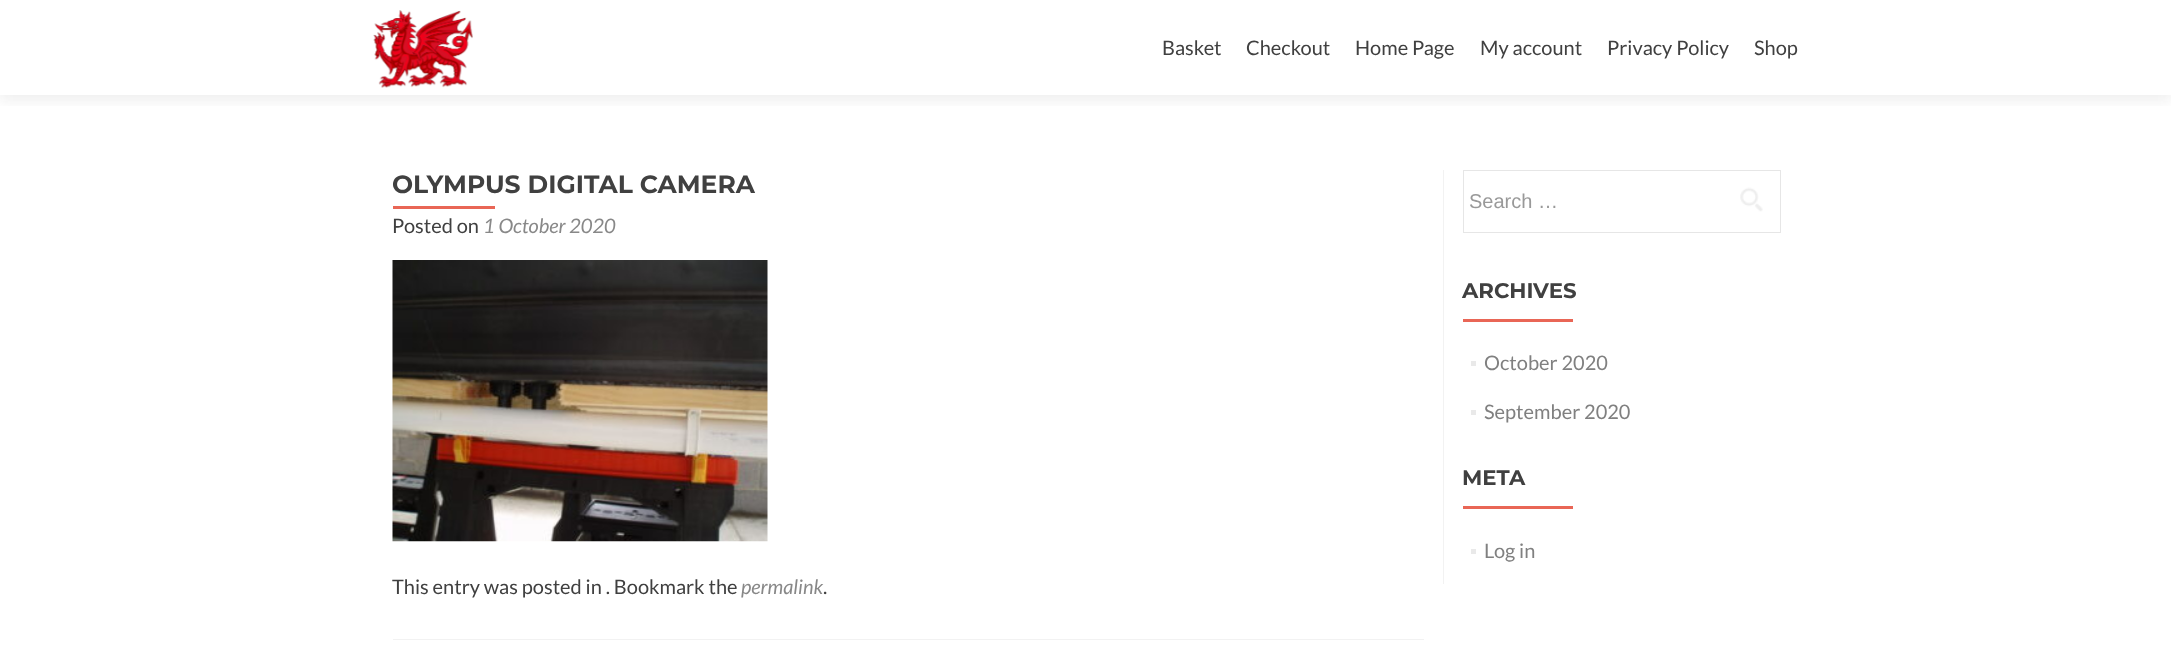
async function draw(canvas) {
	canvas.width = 2171;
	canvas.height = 655;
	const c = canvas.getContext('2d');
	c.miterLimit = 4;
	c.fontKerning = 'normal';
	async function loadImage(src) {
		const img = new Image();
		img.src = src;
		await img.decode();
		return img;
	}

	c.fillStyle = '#fff';
	c.fillRect(0, 0, 2171, 655);
	c.save();
	c.beginPath();
	c.rect(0, 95, 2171, 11);
	c.clip();
	c.fillStyle = '#32323214';
	c.filter = 'blur(7px)';
	c.beginPath();
	c.rect(0, 6, 2171, 95);
	c.fill();
	c.filter = 'none';
	c.restore();
	c.drawImage(await loadImage('img1.png'), 373, 10, 100, 78);
	c.font = '20px Lato';
	c.fillStyle = '#404040';
	for (const [text, x, y] of [
		['Basket', 1162, 55],
		['Checkout', 1246, 55],
		['Home Page', 1355, 55],
		['My account', 1480, 55],
		['Privacy Policy', 1607, 55],
		['Shop', 1754, 55],
	]) {
		c.fillText(text, x, y);
	}
	c.fillStyle = '#f2f2f2';
	c.fillRect(393, 639, 1031, 1);
	c.font = 'bold 25px Montserrat';
	c.fillStyle = '#404040';
	c.fillText('OLYMPUS DIGITAL CAMERA', 392, 193);
	c.fillStyle = '#e96656';
	c.fillRect(393, 206, 102, 3);
	c.font = '20px Lato';
	c.fillStyle = '#404040';
	c.fillText('Posted on', 392, 233);
	c.font = 'italic 20px Lato';
	c.fillStyle = '#888';
	c.fillText('1 October 2020', 483, 233);
	c.drawImage(await loadImage('img2.png'), 392, 260, 376, 282);
	c.font = '20px Lato';
	c.fillStyle = '#404040';
	c.fillText('This entry was posted in . Bookmark the', 392, 594);
	c.font = 'italic 20px Lato';
	c.fillStyle = '#888';
	c.fillText('permalink', 741, 594);
	c.font = '20px Lato';
	c.fillStyle = '#404040';
	c.fillText('.', 823, 594);
	c.fillStyle = '#f2f2f2';
	c.fillRect(1443, 170, 1, 414);
	c.strokeStyle = '#e6e6e6';
	c.strokeRect(1463.5, 170.5, 317, 62);
	c.font = '20px Liberation Sans';
	c.fillStyle = '#999';
	c.fillText('Search …', 1469, 208);
	c.drawImage(await loadImage('img3.png'), 1740, 187, 23, 25);
	c.font = 'bold 21.25px Montserrat';
	c.fillStyle = '#404040';
	c.fillText('ARCHIVES', 1462, 298);
	c.fillStyle = '#e96656';
	c.fillRect(1463, 319, 110, 3);
	c.fillStyle = '#e9e9e9';
	c.fillRect(1471, 361, 5, 5);
	c.font = '20px Lato';
	c.fillStyle = '#808080';
	c.fillText('October 2020', 1484, 370);
	c.fillStyle = '#e9e9e9';
	c.fillRect(1471, 410, 5, 5);
	c.fillStyle = '#808080';
	c.fillText('September 2020', 1484, 419);
	c.font = 'bold 21.25px Montserrat';
	c.fillStyle = '#404040';
	c.fillText('META', 1462, 485);
	c.fillStyle = '#e96656';
	c.fillRect(1463, 506, 110, 3);
	c.fillStyle = '#e9e9e9';
	c.fillRect(1471, 549, 5, 5);
	c.font = '20px Lato';
	c.fillStyle = '#808080';
	c.fillText('Log in', 1484, 558);
}

draw(document.querySelector('canvas'));
